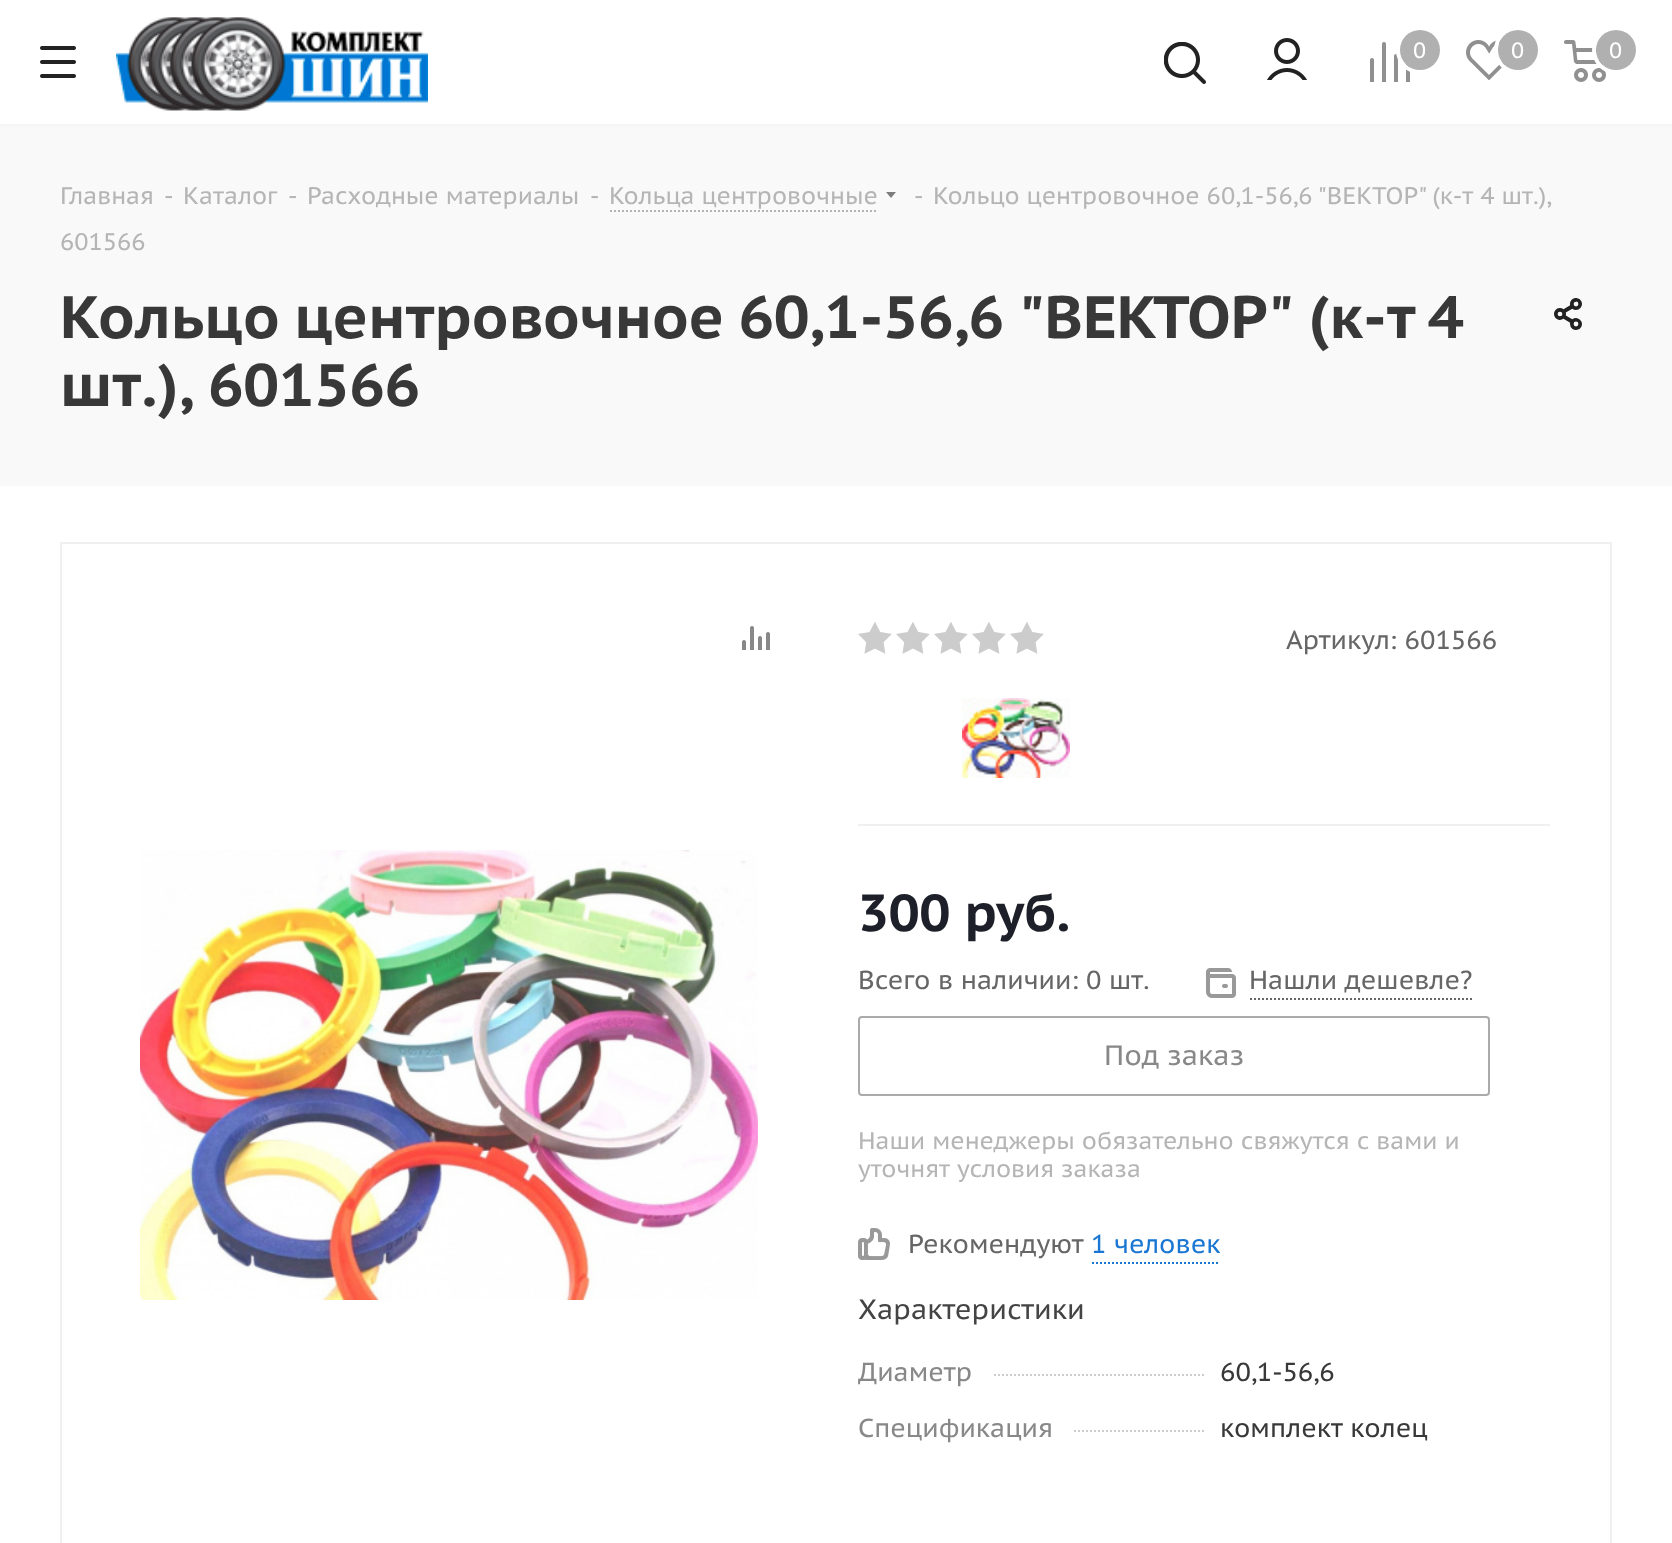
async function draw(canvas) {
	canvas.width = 1672;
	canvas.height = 1543;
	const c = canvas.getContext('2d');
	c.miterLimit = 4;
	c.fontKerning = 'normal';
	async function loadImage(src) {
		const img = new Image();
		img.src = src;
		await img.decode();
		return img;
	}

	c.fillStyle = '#fff';
	c.fillRect(0, 0, 1672, 1543);
	c.fillStyle = '#f5f5f5';
	c.fillRect(0, 124, 1672, 2);
	c.drawImage(await loadImage('img1.png'), 40, 46, 36, 32);
	c.drawImage(await loadImage('img2.png'), 116, 14, 312, 98);
	c.drawImage(await loadImage('img3.png'), 1164, 42, 42, 42);
	c.drawImage(await loadImage('img4.png'), 1267, 38, 40, 42);
	c.drawImage(await loadImage('img5.png'), 1370, 42, 40, 40);
	c.beginPath();
	c.arc(1420, 50, 22, 0, 2 * Math.PI);
	c.strokeStyle = '#fff';
	c.lineWidth = 4;
	c.stroke();
	c.fillStyle = '#b0b0b0';
	c.beginPath();
	c.arc(1420, 50, 20, 0, 2 * Math.PI);
	c.fill();
	c.font = '22px PT Sans Caption';
	c.fillStyle = '#fff';
	c.fillText('0', 1413, 58);
	c.drawImage(await loadImage('img6.png'), 1466, 40, 39, 40);
	c.beginPath();
	c.arc(1518, 50, 22, 0, 2 * Math.PI);
	c.stroke();
	c.fillStyle = '#b0b0b0';
	c.beginPath();
	c.arc(1518, 50, 20, 0, 2 * Math.PI);
	c.fill();
	c.fillStyle = '#fff';
	c.fillText('0', 1511, 58);
	c.drawImage(await loadImage('img7.png'), 1564, 40, 42, 42);
	c.beginPath();
	c.arc(1616, 50, 22, 0, 2 * Math.PI);
	c.stroke();
	c.fillStyle = '#b0b0b0';
	c.beginPath();
	c.arc(1616, 50, 20, 0, 2 * Math.PI);
	c.fill();
	c.fillStyle = '#fff';
	c.fillText('0', 1609, 58);
	c.fillStyle = '#f9f9f9';
	c.fillRect(0, 126, 1672, 360);
	c.font = '24px PT Sans Caption';
	c.fillStyle = '#b6b5b5';
	for (const [text, x, y] of [
		['Главная', 60, 204],
		['-', 164, 204],
		['Каталог', 183, 204],
		['-', 288, 204],
		['Расходные материалы', 307, 204],
		['-', 590, 204],
		['Кольца центровочные', 609, 204],
	]) {
		c.fillText(text, x, y);
	}
	c.beginPath();
	c.moveTo(610, 211);
	c.lineTo(878, 211);
	c.strokeStyle = '#b4b4b4';
	c.lineWidth = 2;
	c.setLineDash([2, 2]);
	c.stroke();
	c.drawImage(await loadImage('img8.png'), 886, 192, 10, 6);
	for (const [text, x, y] of [
		['-', 914, 204],
		['Кольцо центровочное 60,1-56,6 "ВЕКТОР" (к-т 4 шт.),', 933, 204],
		['601566', 60, 250],
	]) {
		c.fillText(text, x, y);
	}
	c.wordSpacing = '-2px';
	c.font = 'bold 59.75px PT Sans Caption';
	c.fillStyle = '#383838';
	c.fillText('Кольцо центровочное 60,1-56,6 "ВЕКТОР" (к-т 4', 60, 338);
	c.fillText('шт.), 601566', 60, 406);
	c.drawImage(await loadImage('img9.png'), 1554, 298, 28, 32);
	c.strokeStyle = '#f0f0f0';
	c.setLineDash([]);
	c.strokeRect(61, 543, 1550, 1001);
	c.drawImage(await loadImage('img10.png'), 742, 626, 28, 24);
	c.drawImage(await loadImage('img11.png'), 140, 850, 618, 450);
	c.fillStyle = '#f0f0f0';
	c.fillRect(858, 824, 692, 2);
	c.drawImage(await loadImage('img12.png'), 858, 622, 34, 32);
	c.drawImage(await loadImage('img12.png'), 896, 622, 34, 32);
	c.drawImage(await loadImage('img12.png'), 934, 622, 34, 32);
	c.drawImage(await loadImage('img12.png'), 972, 622, 34, 32);
	c.drawImage(await loadImage('img12.png'), 1010, 622, 34, 32);
	c.wordSpacing = '0px';
	c.font = '26px PT Sans Caption';
	c.fillStyle = '#666';
	c.fillText('Артикул: 601566', 1286, 649);
	c.drawImage(await loadImage('img13.png'), 962, 698, 108, 80);
	c.font = 'bold 52px PT Sans Caption';
	c.fillStyle = '#1d2029';
	c.fillText('300 руб.', 858, 931);
	c.font = '26px PT Sans Caption';
	c.fillStyle = '#666';
	c.fillText('Всего в наличии: 0 шт.', 858, 989);
	c.drawImage(await loadImage('img14.png'), 1206, 968, 30, 30);
	c.fillText('Нашли дешевле?', 1249, 989);
	c.beginPath();
	c.moveTo(1250, 999);
	c.lineTo(1472, 999);
	c.strokeStyle = '#666';
	c.setLineDash([2, 2]);
	c.stroke();
	c.beginPath();
	c.roundRect(859, 1017, 630, 78, 3);
	c.strokeStyle = '#aaa';
	c.setLineDash([]);
	c.stroke();
	c.font = '28px PT Sans Caption';
	c.fillStyle = '#888';
	c.fillText('Под заказ', 1104, 1065);
	c.font = '24px PT Sans Caption';
	c.fillStyle = '#b6b5b5';
	c.fillText('Наши менеджеры обязательно свяжутся с вами и', 858, 1149);
	c.fillText('уточнят условия заказа', 858, 1177);
	c.drawImage(await loadImage('img15.png'), 858, 1228, 32, 32);
	c.font = '26px PT Sans Caption';
	c.fillStyle = '#666';
	c.fillText('Рекомендуют', 908, 1253);
	c.fillStyle = '#1976d2';
	c.fillText('1 человек', 1091, 1253);
	c.beginPath();
	c.moveTo(1092, 1263);
	c.lineTo(1220, 1263);
	c.strokeStyle = '#1976d2';
	c.setLineDash([2, 2]);
	c.stroke();
	c.font = '28px PT Sans Caption';
	c.fillStyle = '#444';
	c.fillText('Характеристики', 858, 1319);
	c.beginPath();
	c.moveTo(858, 1375);
	c.lineTo(1550, 1375);
	c.strokeStyle = '#ccc';
	c.stroke();
	c.fillStyle = '#fff';
	c.fillRect(858, 1374, 134, 2);
	c.font = '26px PT Sans Caption';
	c.fillStyle = '#888';
	c.fillText('Диаметр', 858, 1381);
	c.fillStyle = '#fff';
	c.fillRect(1206, 1374, 342, 2);
	c.fillStyle = '#383838';
	c.fillText('60,1-56,6', 1220, 1381);
	c.beginPath();
	c.moveTo(858, 1431);
	c.lineTo(1550, 1431);
	c.stroke();
	c.fillStyle = '#fff';
	c.fillRect(858, 1430, 214, 2);
	c.fillStyle = '#888';
	c.fillText('Спецификация', 858, 1437);
	c.fillStyle = '#fff';
	c.fillRect(1206, 1430, 342, 2);
	c.fillStyle = '#383838';
	c.fillText('комплект колец', 1220, 1437);
}

draw(document.querySelector('canvas'));
